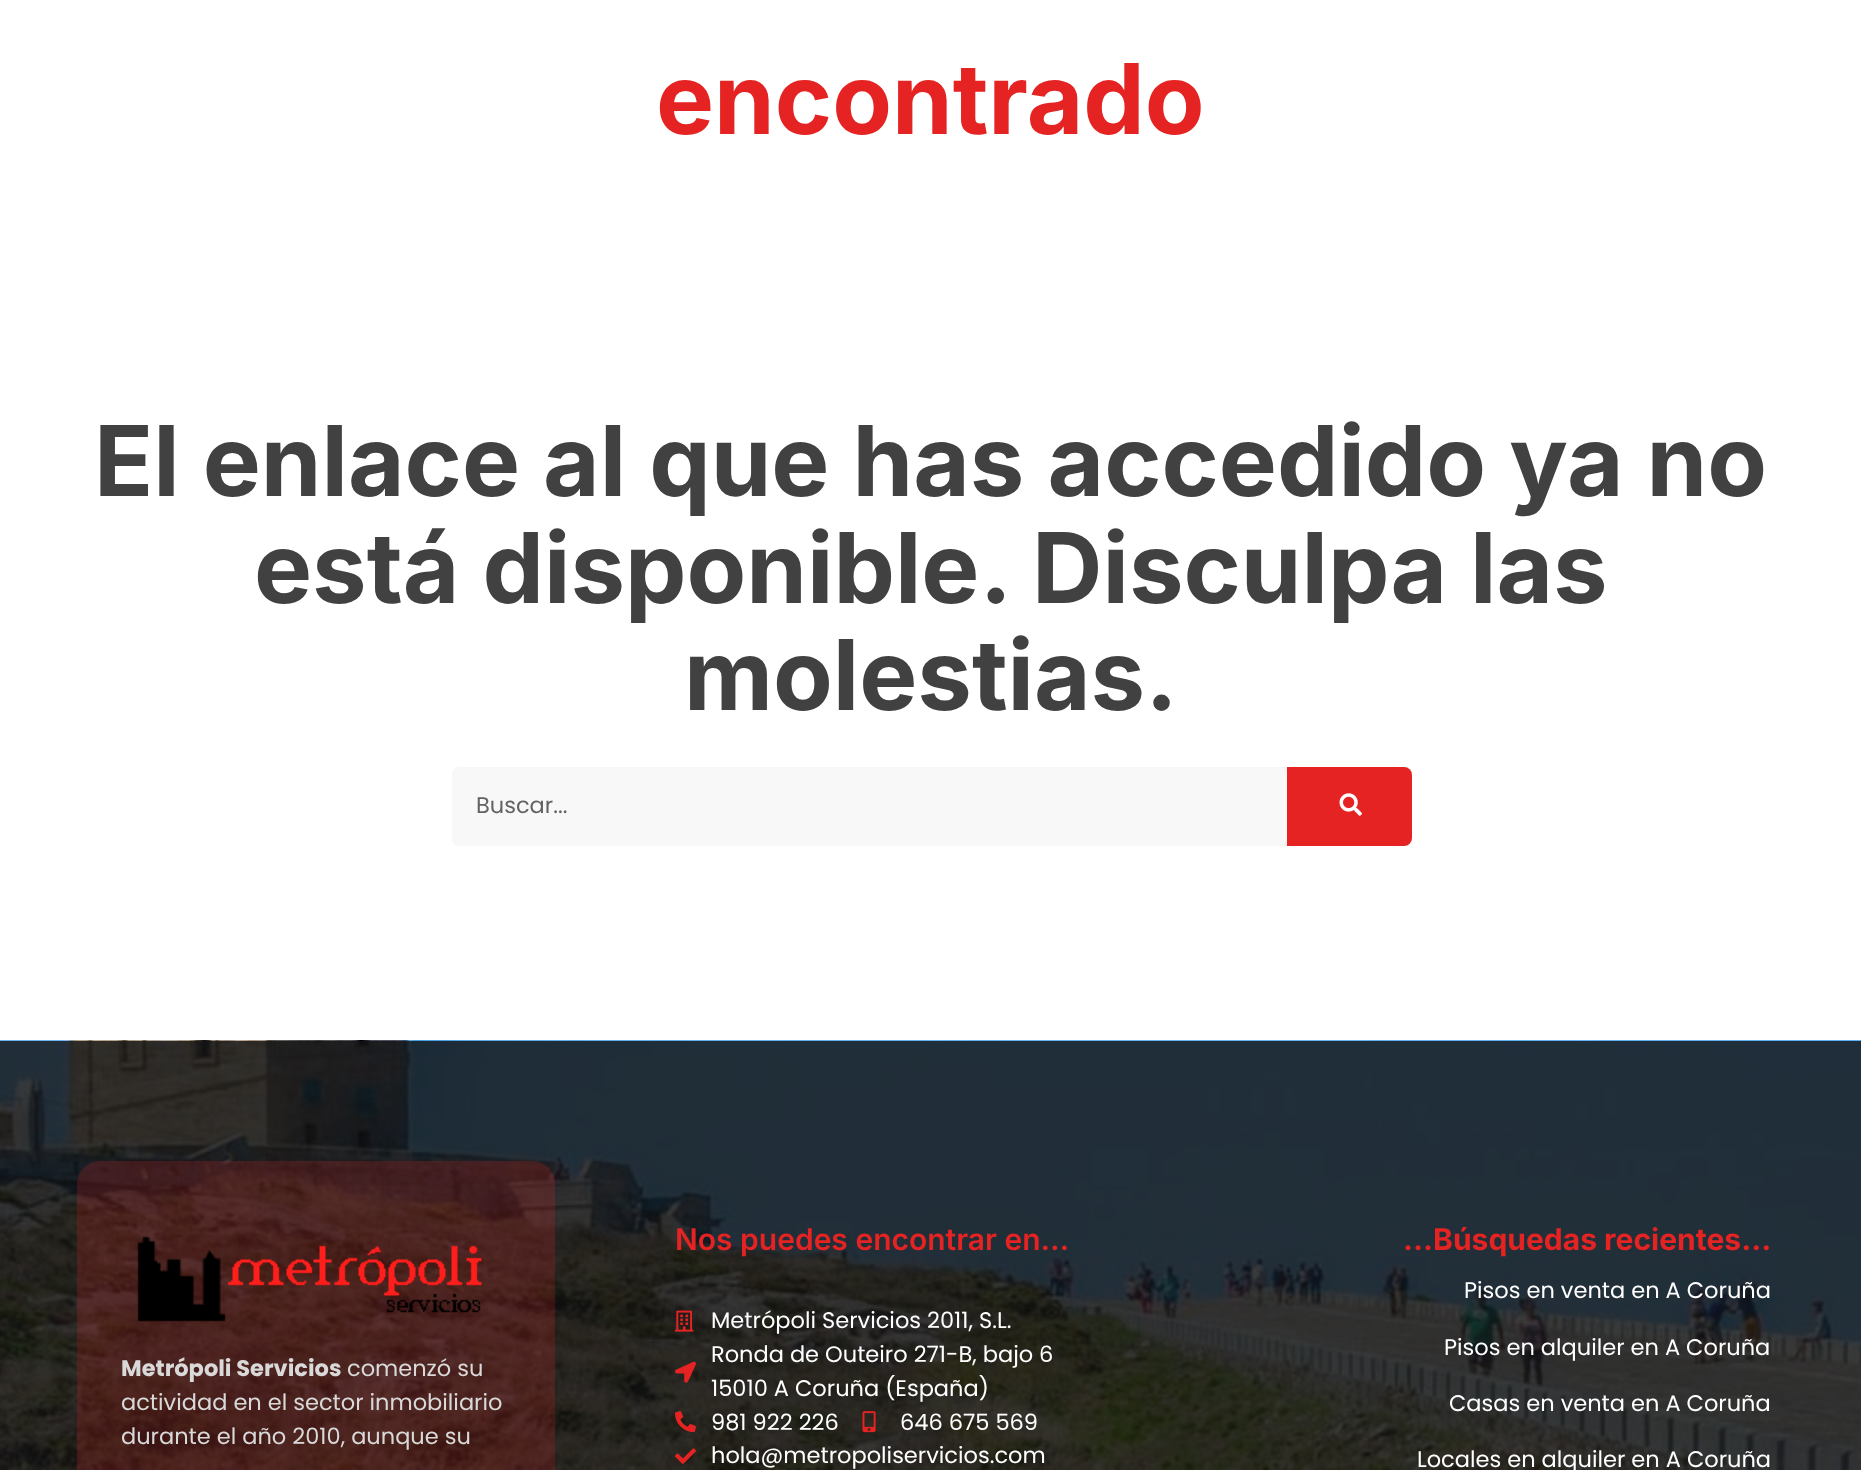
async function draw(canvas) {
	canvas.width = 1861;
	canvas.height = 1470;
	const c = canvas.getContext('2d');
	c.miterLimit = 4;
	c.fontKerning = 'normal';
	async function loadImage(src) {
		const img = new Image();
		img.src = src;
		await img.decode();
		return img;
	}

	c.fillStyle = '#fff';
	c.fillRect(0, 0, 1861, 1470);
	c.font = 'bold 97.5px Inter';
	c.fillStyle = '#e42322';
	c.fillText('encontrado', 656, 134);
	c.fillStyle = '#414141';
	for (const [text, x, y] of [
		['El enlace al que has accedido ya no', 94, 496],
		['está disponible. Disculpa las', 254, 603],
		['molestias.', 684, 710],
	]) {
		c.fillText(text, x, y);
	}
	c.fillStyle = '#f1f2f3';
	c.beginPath();
	c.roundRect(452, 767, 960, 79, 8);
	c.fill();
	c.fillStyle = '#f8f8f8';
	c.beginPath();
	c.roundRect(452, 767, 835, 79, 8);
	c.fill();
	c.font = '22.5px Poppins';
	c.fillStyle = '#636363';
	c.fillText('Buscar...', 476, 813);
	c.fillStyle = '#e42322';
	c.beginPath();
	c.roundRect(1287, 767, 125, 79, [0, 8, 8, 0]);
	c.fill();
	c.drawImage(await loadImage('img1.png'), 1339, 793, 23, 23);
	c.drawImage(await loadImage('img2.png'), 0, 1040, 1861, 430);
	c.fillStyle = '#e4232233';
	c.beginPath();
	c.roundRect(77, 1161, 478, 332, 23);
	c.fill();
	c.drawImage(await loadImage('img3.png'), 137, 1236, 345, 86);
	c.font = 'bold 22.5px Poppins';
	c.fillStyle = '#d9d9d9';
	c.fillText('Metrópoli Servicios', 121, 1376);
	c.font = '22.5px Poppins';
	for (const [text, x, y] of [
		['comenzó su', 347, 1376],
		['actividad en el sector inmobiliario', 121, 1410],
		['durante el año 2010, aunque su', 121, 1444],
	]) {
		c.fillText(text, x, y);
	}
	c.font = '600 30px Inter';
	c.fillStyle = '#e42322';
	c.fillText('Nos puedes encontrar en…', 675, 1250);
	c.drawImage(await loadImage('img4.png'), 675, 1310, 19, 22);
	c.font = '22.5px Poppins';
	c.fillStyle = '#fff';
	c.fillText('Metrópoli Servicios 2011, S.L.', 711, 1328);
	c.drawImage(await loadImage('img5.png'), 675, 1361, 21, 22);
	c.fillText('Ronda de Outeiro 271-B, bajo 6', 711, 1362);
	c.fillText('15010 A Coruña (España)', 711, 1396);
	c.drawImage(await loadImage('img6.png'), 675, 1411, 21, 22);
	c.fillText('981 922 226', 711, 1430);
	c.drawImage(await loadImage('img7.png'), 862, 1411, 14, 22);
	c.fillText('646 675 569', 900, 1430);
	c.drawImage(await loadImage('img8.png'), 675, 1448, 21, 16);
	c.fillText('hola@metropoliservicios.com', 711, 1463);
	c.font = 'bold 30px Inter';
	c.fillStyle = '#e42322';
	c.fillText('…Búsquedas recientes…', 1403, 1250);
	c.font = '22.5px Poppins';
	c.fillStyle = '#fff';
	for (const [text, x, y] of [
		['Pisos en venta en A Coruña', 1464, 1298],
		['Pisos en alquiler en A Coruña', 1444, 1355],
		['Casas en venta en A Coruña', 1449, 1411],
		['Locales en alquiler en A Coruña', 1417, 1467],
	]) {
		c.fillText(text, x, y);
	}
}

draw(document.querySelector('canvas'));
